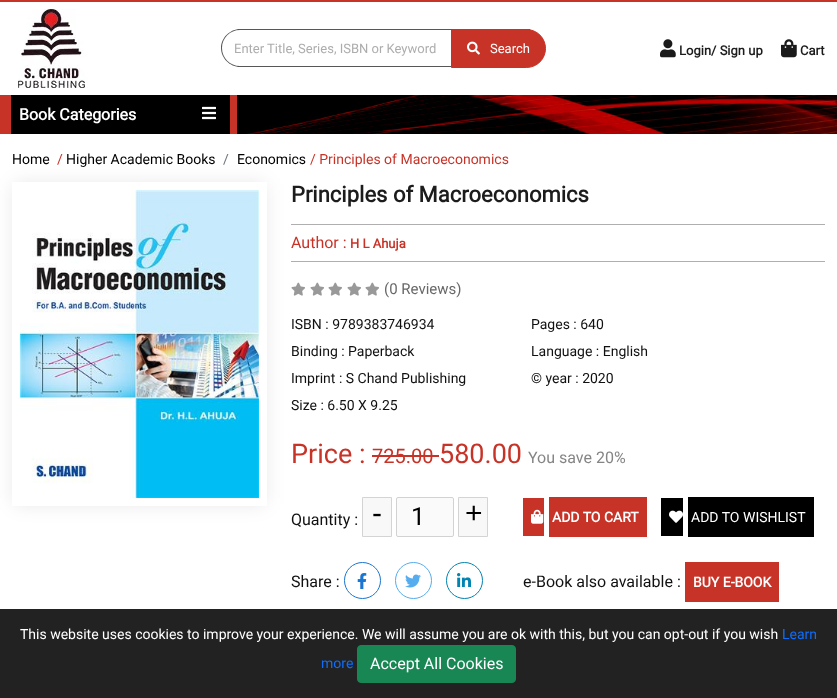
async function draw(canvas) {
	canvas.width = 837;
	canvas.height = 698;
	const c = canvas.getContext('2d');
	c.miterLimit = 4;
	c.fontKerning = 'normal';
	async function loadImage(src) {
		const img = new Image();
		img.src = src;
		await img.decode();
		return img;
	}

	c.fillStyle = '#fff';
	c.fillRect(0, 0, 837, 698);
	c.fillStyle = '#c83328';
	c.fillRect(0, 0, 837, 2);
	c.drawImage(await loadImage('img1.png'), 18, 9, 70, 79);
	c.fillStyle = '#575757';
	c.beginPath();
	c.moveTo(240, 29);
	c.lineTo(530, 29);
	c.lineTo(530, 67);
	c.lineTo(240, 67);
	c.bezierCurveTo(230, 67, 221, 58, 221, 48);
	c.bezierCurveTo(221, 38, 230, 29, 240, 29);
	c.closePath();
	c.moveTo(240, 30);
	c.lineTo(530, 30);
	c.lineTo(530, 66);
	c.lineTo(240, 66);
	c.bezierCurveTo(230, 66, 222, 58, 222, 48);
	c.bezierCurveTo(222, 38, 230, 30, 240, 30);
	c.closePath();
	c.fill('evenodd');
	c.font = '13px Roboto';
	c.fillStyle = '#adadad';
	c.fillText('Enter Title, Series, ISBN or Keyword', 234, 53);
	c.fillStyle = '#c83328';
	c.beginPath();
	c.roundRect(451.5, 29.5, 94, 38, [0, 19, 19, 0]);
	c.fill();
	c.strokeStyle = '#c83328';
	c.stroke();
	c.drawImage(await loadImage('img2.png'), 467, 41, 13, 14);
	c.fillStyle = '#fff';
	c.fillText('Search', 490, 53);
	c.drawImage(await loadImage('img3.png'), 660, 39, 16, 19);
	c.font = 'bold 13px Roboto';
	c.fillStyle = '#1c1c1c';
	c.fillText('Login/ Sign up', 679, 55);
	c.drawImage(await loadImage('img4.png'), 781, 39, 16, 19);
	c.fillText('Cart', 800, 55);
	c.fillStyle = '#c83328';
	c.fillRect(0, 95, 237, 39);
	c.fillStyle = '#000';
	c.fillRect(11, 95, 219, 39);
	c.font = 'bold 16px Roboto';
	c.fillStyle = '#fff';
	c.fillText('Book Categories', 19, 120);
	c.drawImage(await loadImage('img5.png'), 202, 106, 14, 14);
	c.drawImage(await loadImage('img6.png'), 237, 95, 600, 39);
	c.save();
	c.beginPath();
	c.moveTo(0, 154);
	c.lineTo(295, 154);
	c.lineTo(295, 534);
	c.lineTo(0, 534);
	c.closePath();
	c.moveTo(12, 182);
	c.lineTo(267, 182);
	c.lineTo(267, 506);
	c.lineTo(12, 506);
	c.closePath();
	c.clip('evenodd');
	c.fillStyle = '#0000001a';
	c.filter = 'blur(9.5px)';
	c.beginPath();
	c.rect(14, 184, 251, 320);
	c.fill();
	c.filter = 'none';
	c.restore();
	c.font = '14px Roboto';
	c.fillStyle = '#000';
	c.fillText('Home', 12, 164);
	c.fillStyle = '#c83328';
	c.fillText('/', 57, 164);
	c.fillStyle = '#000';
	c.fillText('Higher Academic Books', 66, 164);
	c.fillStyle = '#6c757d';
	c.fillText('/', 223, 164);
	c.fillStyle = '#000';
	c.fillText('Economics', 237, 164);
	c.fillStyle = '#c83328';
	c.fillText('/ Principles of Macroeconomics', 310, 164);
	c.drawImage(await loadImage('img7.png'), 20, 190, 239, 308);
	c.font = 'bold 22px Roboto';
	c.fillStyle = '#1c1c1c';
	c.fillText('Principles of Macroeconomics', 291, 202);
	c.fillStyle = '#afafaf';
	c.fillRect(291, 224, 534, 1);
	c.fillRect(291, 261, 534, 1);
	c.font = '16px Roboto';
	c.fillStyle = '#c83328';
	c.fillText('Author :', 291, 248);
	c.font = 'bold 13px Roboto';
	c.fillText('H L Ahuja', 350, 248);
	c.drawImage(await loadImage('img8.png'), 291, 282, 14, 14);
	c.drawImage(await loadImage('img8.png'), 310, 282, 14, 14);
	c.drawImage(await loadImage('img8.png'), 328, 282, 14, 14);
	c.drawImage(await loadImage('img8.png'), 347, 282, 14, 14);
	c.drawImage(await loadImage('img8.png'), 365, 282, 14, 14);
	c.font = '15px Roboto';
	c.fillStyle = '#696969';
	c.fillText('(0 Reviews)', 384, 294);
	c.font = '14px Roboto';
	c.fillStyle = '#121111';
	for (const [text, x, y] of [
		['ISBN : 9789383746934', 291, 329],
		['Pages : 640', 531, 329],
		['Binding : Paperback', 291, 356],
		['Language : English', 531, 356],
		['Imprint : S Chand Publishing', 291, 383],
		['© year : 2020', 531, 383],
		['Size : 6.50 X 9.25', 291, 410],
	]) {
		c.fillText(text, x, y);
	}
	c.font = '27px Roboto';
	c.fillStyle = '#c83328';
	c.fillText('Price :', 291, 463);
	c.font = '20px Roboto';
	c.fillText('725.00', 372, 463);
	c.fillRect(372, 455, 67, 2);
	c.font = '27px Roboto';
	c.fillText('580.00', 439, 463);
	c.font = '16px Roboto';
	c.fillStyle = '#858585';
	c.fillText('You save 20%', 528, 463);
	c.fillStyle = '#121111';
	c.fillText('Quantity :', 291, 525);
	c.fillStyle = '#f8f8f8';
	c.beginPath();
	c.rect(362.5, 497.5, 29, 39);
	c.fill();
	c.strokeStyle = '#d4d4d4';
	c.stroke();
	c.font = '30px Liberation Sans';
	c.fillStyle = '#000';
	c.fillText('-', 372, 523);
	c.fillStyle = '#fafafa';
	c.beginPath();
	c.roundRect(396.5, 497.5, 57, 39, 1.5);
	c.fill();
	c.strokeStyle = '#d2d2d2';
	c.stroke();
	c.font = '25px Roboto';
	c.fillStyle = '#000';
	c.fillText('1', 411, 525);
	c.fillStyle = '#f8f8f8';
	c.beginPath();
	c.rect(458.5, 497.5, 29, 39);
	c.fill();
	c.strokeStyle = '#d4d4d4';
	c.stroke();
	c.font = '30px Liberation Sans';
	c.fillStyle = '#000';
	c.fillText('+', 465, 523);
	c.fillStyle = '#c83328';
	c.fillRect(523, 498, 21, 38);
	c.fillRect(549, 497, 98, 40);
	c.drawImage(await loadImage('img9.png'), 531, 509, 13, 15);
	c.font = 'bold 14px Roboto';
	c.fillStyle = '#fff';
	c.fillText('ADD TO CART', 552, 522);
	c.fillStyle = '#000';
	c.fillRect(661, 498, 22, 38);
	c.fillRect(688, 497, 126, 40);
	c.drawImage(await loadImage('img10.png'), 669, 510, 14, 13);
	c.font = '14px Roboto';
	c.fillStyle = '#fff';
	c.fillText('ADD TO WISHLIST', 691, 522);
	c.font = '16px Roboto';
	c.fillStyle = '#121111';
	c.fillText('Share :', 291, 587);
	c.beginPath();
	c.arc(362.5, 580.5, 18, 0, 2 * Math.PI);
	c.strokeStyle = '#1976d2';
	c.stroke();
	c.drawImage(await loadImage('img11.png'), 357, 573, 10, 16);
	c.beginPath();
	c.arc(413.5, 580.5, 18, 0, 2 * Math.PI);
	c.strokeStyle = '#55acee';
	c.stroke();
	c.drawImage(await loadImage('img12.png'), 405, 574, 16, 14);
	c.beginPath();
	c.arc(464.5, 580.5, 18, 0, 2 * Math.PI);
	c.strokeStyle = '#0084b1';
	c.stroke();
	c.drawImage(await loadImage('img13.png'), 457, 573, 14, 14);
	c.fillText('e-Book also available :', 523, 587);
	c.fillStyle = '#c83328';
	c.fillRect(685, 562, 94, 40);
	c.font = 'bold 14px Roboto';
	c.fillStyle = '#fff';
	c.fillText('BUY E-BOOK', 693, 587);
	c.fillStyle = '#222';
	c.fillRect(0, 609, 837, 89);
	c.font = '14px Roboto';
	c.fillStyle = '#fff';
	c.fillText('This website uses cookies to improve your experience. We will assume you are ok with this, but you can opt-out if you wish', 20, 639);
	c.fillStyle = '#0d6efd';
	c.fillText('Learn', 782, 639);
	c.fillText('more', 321, 668);
	c.fillStyle = '#198754';
	c.beginPath();
	c.roundRect(357.5, 645.5, 158, 37, 3.5);
	c.fill();
	c.strokeStyle = '#198754';
	c.stroke();
	c.font = '16px Roboto';
	c.fillStyle = '#fff';
	c.fillText('Accept All Cookies', 370, 669);
}

draw(document.querySelector('canvas'));
